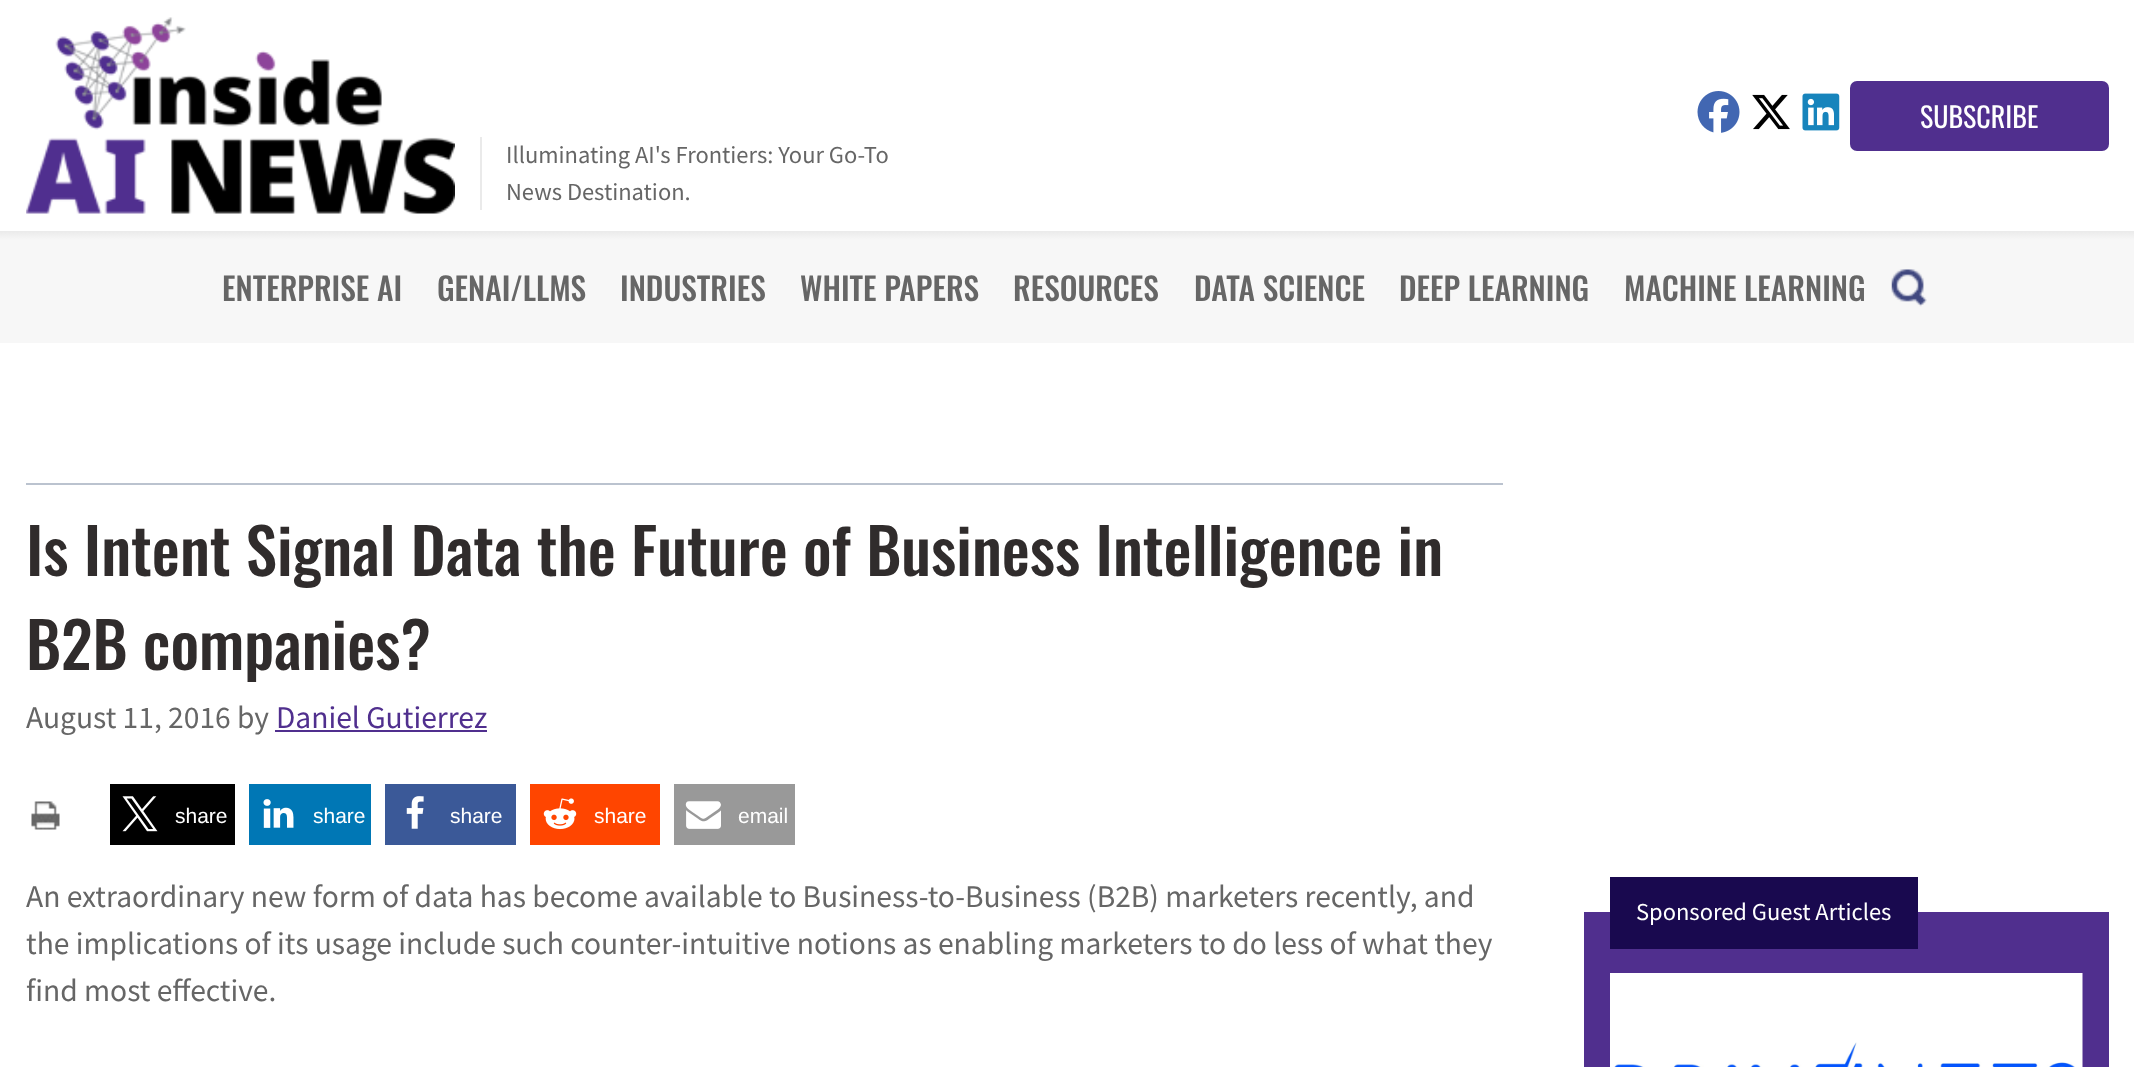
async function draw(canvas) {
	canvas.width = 2134;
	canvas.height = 1067;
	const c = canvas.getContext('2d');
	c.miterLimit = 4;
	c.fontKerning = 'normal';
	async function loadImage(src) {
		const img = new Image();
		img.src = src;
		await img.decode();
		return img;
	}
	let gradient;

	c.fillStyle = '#fff';
	c.fillRect(0, 0, 2134, 1067);
	c.drawImage(await loadImage('img1.png'), 1697, 91, 43, 42);
	c.drawImage(await loadImage('img2.png'), 1752, 94, 38, 36);
	c.drawImage(await loadImage('img3.png'), 1802, 93, 38, 38);
	c.fillStyle = '#502f8e';
	c.beginPath();
	c.roundRect(1850, 81, 259, 70, 7);
	c.fill();
	c.font = '28px Oswald';
	c.fillStyle = '#fff';
	c.fillText('SUBSCRIBE', 1920, 128);
	c.drawImage(await loadImage('img4.png'), 26, 17, 429, 197);
	c.fillStyle = '#eaeaea';
	c.fillRect(480, 137, 2, 73);
	c.font = '24.5px Source Sans Pro';
	c.fillStyle = '#666';
	c.fillText('Illuminating AI\'s Frontiers: Your Go-To', 506, 163);
	c.fillText('News Destination.', 506, 200);
	gradient = c.createLinearGradient(1068, 231, 1068, 343);
	gradient.addColorStop(0, '#eaeaea');
	gradient.addColorStop(0.08, '#f7f7f7');
	c.fillStyle = gradient;
	c.fillRect(0, 231, 2134, 112);
	c.font = '500 31.5px Oswald';
	c.fillStyle = '#666';
	for (const [text, x, y] of [
		['ENTERPRISE AI', 222, 301],
		['GENAI/LLMS', 437, 301],
		['INDUSTRIES', 620, 301],
		['WHITE PAPERS', 800, 301],
		['RESOURCES', 1013, 301],
		['DATA SCIENCE', 1194, 301],
		['DEEP LEARNING', 1399, 301],
		['MACHINE LEARNING', 1624, 301],
	]) {
		c.fillText(text, x, y);
	}
	c.drawImage(await loadImage('img5.png'), 1891, 269, 36, 38);
	c.fillStyle = '#bbc3cf';
	c.fillRect(26, 483, 1477, 2);
	c.font = '500 63px Oswald';
	c.fillStyle = '#302c2c';
	c.fillText('Is Intent Signal Data the Future of Business Intelligence in', 26, 576);
	c.fillText('B2B companies?', 26, 670);
	c.font = '31.5px Source Sans Pro';
	c.fillStyle = '#666';
	c.fillText('August 11, 2016 by', 26, 728);
	c.fillStyle = '#502f8e';
	c.fillText('Daniel Gutierrez', 276, 728);
	c.fillRect(275, 730, 212, 2);
	c.drawImage(await loadImage('img6.png'), 31, 801, 29, 29);
	c.fillStyle = '#000';
	c.fillRect(110, 784, 125, 61);
	c.drawImage(await loadImage('img7.png'), 122, 796, 36, 36);
	c.font = '21px Liberation Sans';
	c.fillStyle = '#fff';
	c.fillText('share', 175, 823);
	c.fillStyle = '#0077b5';
	c.fillRect(249, 784, 122, 61);
	c.drawImage(await loadImage('img8.png'), 263, 799, 31, 29);
	c.fillStyle = '#fff';
	c.fillText('share', 313, 823);
	c.fillStyle = '#3b5998';
	c.fillRect(385, 784, 131, 61);
	c.drawImage(await loadImage('img9.png'), 406, 796, 18, 33);
	c.fillStyle = '#fff';
	c.fillText('share', 450, 823);
	c.fillStyle = '#ff4500';
	c.fillRect(530, 784, 130, 61);
	c.drawImage(await loadImage('img10.png'), 543, 798, 34, 32);
	c.fillStyle = '#fff';
	c.fillText('share', 594, 823);
	c.fillStyle = '#999';
	c.fillRect(674, 784, 121, 61);
	c.drawImage(await loadImage('img11.png'), 685, 801, 36, 28);
	c.fillStyle = '#fff';
	c.fillText('email', 738, 823);
	c.font = '31.5px Source Sans Pro';
	c.fillStyle = '#666';
	for (const [text, x, y] of [
		['An extraordinary new form of data has become available to Business-to-Business (B2B) marketers recently, and', 26, 907],
		['the implications of its usage include such counter-intuitive notions as enabling marketers to do less of what they', 26, 954],
		['find most effective.', 26, 1001],
	]) {
		c.fillText(text, x, y);
	}
	c.fillStyle = '#502f8e';
	c.fillRect(1584, 912, 525, 155);
	c.fillStyle = '#19094f';
	c.fillRect(1610, 877, 308, 72);
	c.font = '24.5px Source Sans Pro';
	c.fillStyle = '#fff';
	c.fillText('Sponsored Guest Articles', 1636, 920);
	c.drawImage(await loadImage('img12.png'), 1610, 973, 473, 94);
}

draw(document.querySelector('canvas'));
